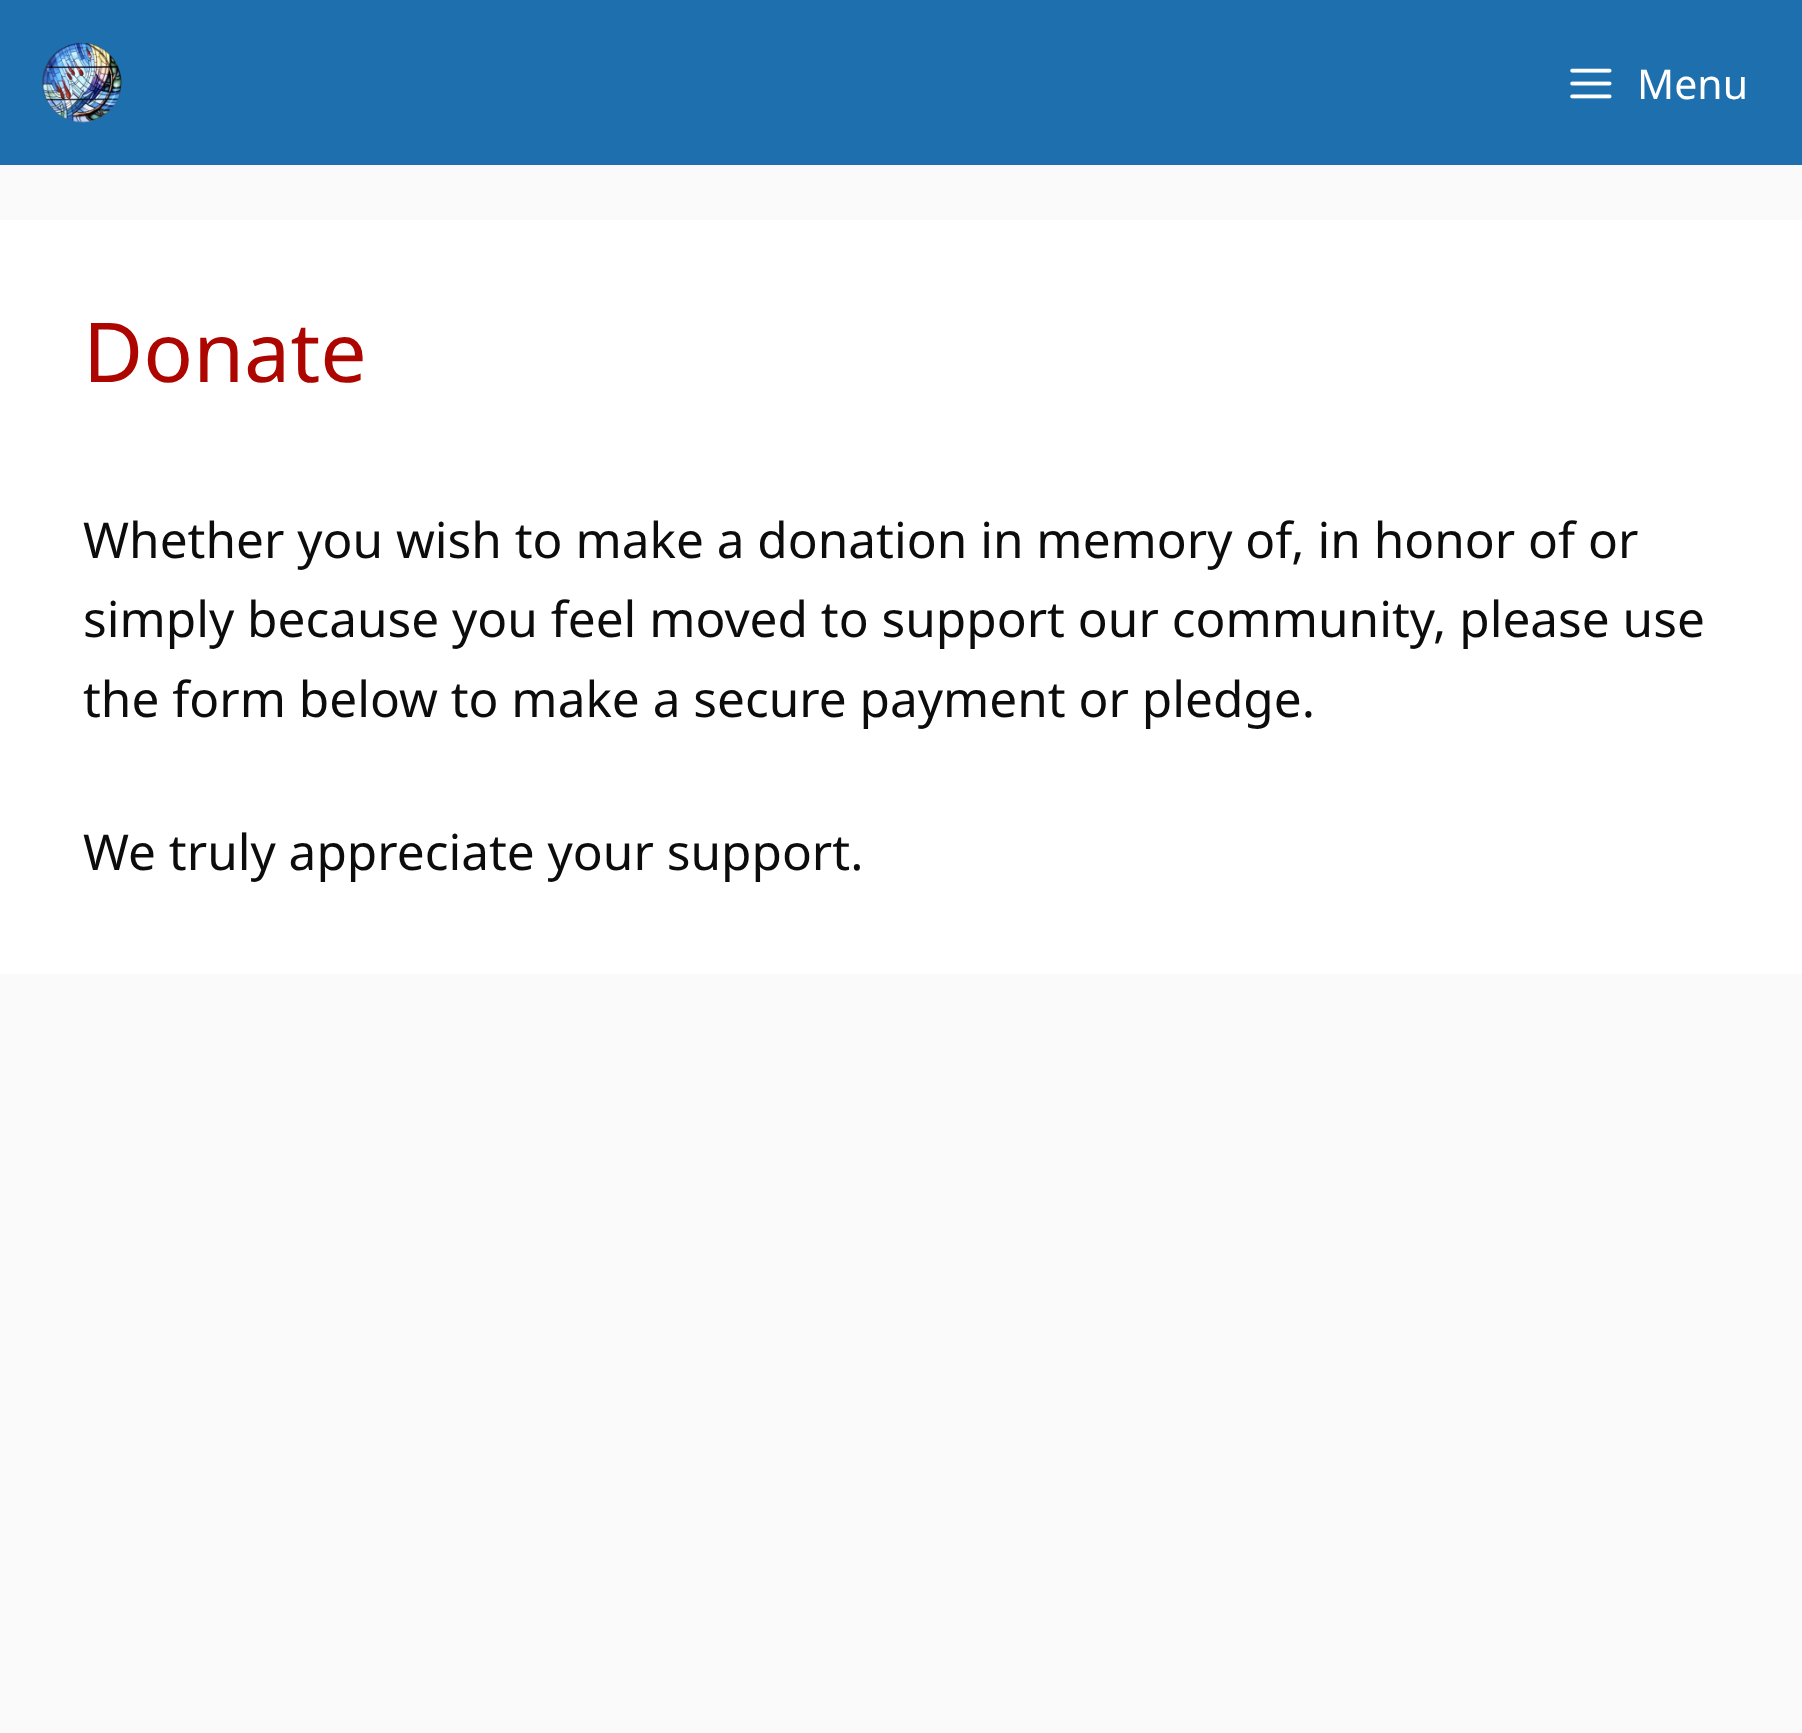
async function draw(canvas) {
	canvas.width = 1802;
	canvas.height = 1733;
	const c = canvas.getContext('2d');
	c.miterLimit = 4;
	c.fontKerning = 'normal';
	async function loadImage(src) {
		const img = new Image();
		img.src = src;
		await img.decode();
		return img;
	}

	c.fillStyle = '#fbfafa';
	c.fillRect(0, 0, 1802, 1733);
	c.fillStyle = '#1d6fad';
	c.fillRect(0, 0, 1802, 165);
	c.drawImage(await loadImage('img1.png'), 42, 42, 80, 81);
	c.drawImage(await loadImage('img2.png'), 1570, 68, 42, 31);
	c.font = '41px Noto Sans';
	c.fillStyle = '#fff';
	c.fillText('Menu', 1637, 99);
	c.fillRect(0, 220, 1802, 754);
	c.font = '82.5px Noto Sans';
	c.fillStyle = '#ad0500';
	c.fillText('Donate', 83, 382);
	c.font = '49.5px Noto Sans';
	c.fillStyle = '#0c0c0c';
	for (const [text, x, y] of [
		['Whether you wish to make a donation in memory of, in honor of or', 83, 558],
		['simply because you feel moved to support our community, please use', 83, 637],
		['the form below to make a secure payment or pledge.', 83, 717],
		['We truly appreciate your support.', 83, 870],
	]) {
		c.fillText(text, x, y);
	}
}

draw(document.querySelector('canvas'));
